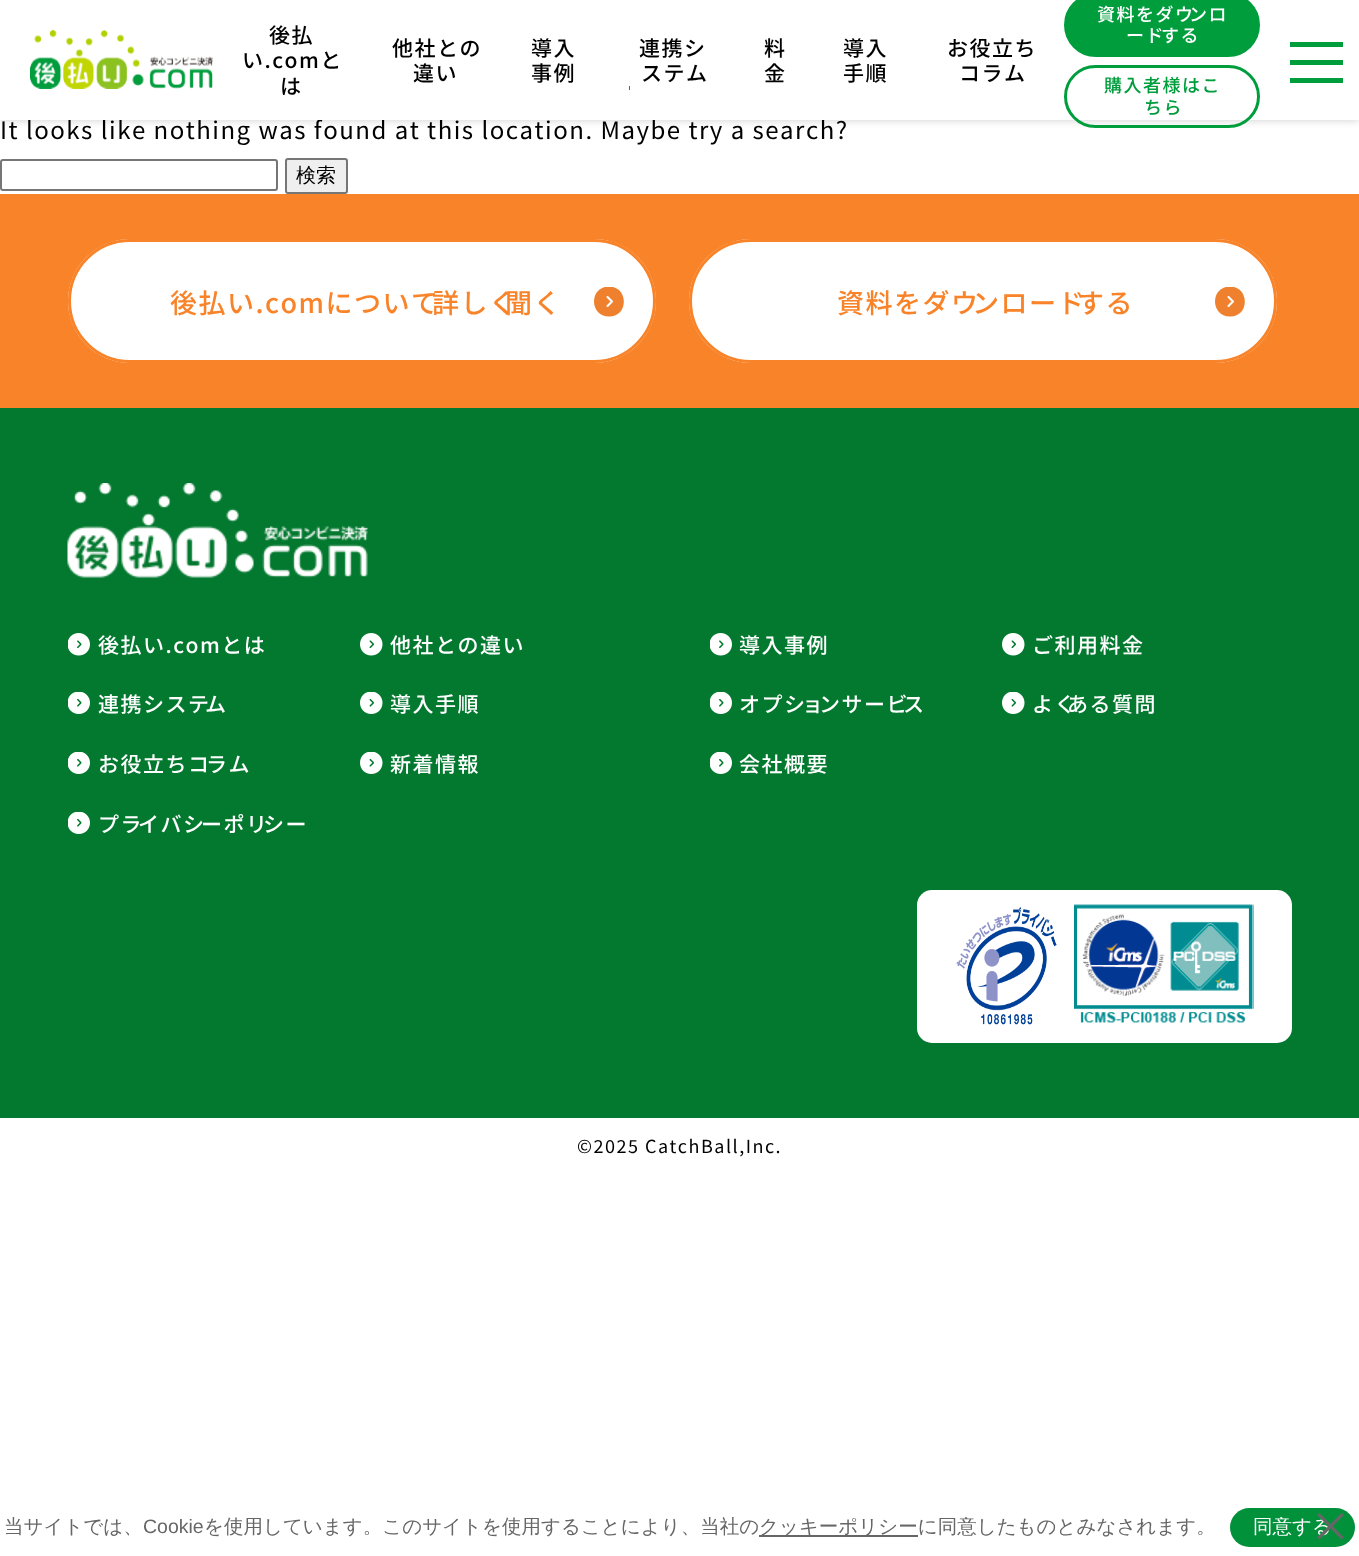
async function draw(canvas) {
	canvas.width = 1359;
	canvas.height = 1556;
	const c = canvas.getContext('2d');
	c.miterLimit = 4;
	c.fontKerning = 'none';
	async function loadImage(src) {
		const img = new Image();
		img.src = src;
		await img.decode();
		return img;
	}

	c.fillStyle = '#fff';
	c.fillRect(0, 0, 1359, 1556);
	c.fillStyle = '#ccc';
	c.filter = 'blur(4px)';
	c.beginPath();
	c.rect(0, 0, 1359, 120);
	c.fill();
	c.filter = 'none';
	c.letterSpacing = '1.5px';
	c.font = '24px Noto Sans JP';
	c.fillStyle = '#000';
	c.fillText('It looks like nothing was found at this location. Maybe try a search?', 0, 139);
	c.fillStyle = '#fff';
	c.fillRect(0, 0, 1359, 120);
	c.drawImage(await loadImage('img1.png'), 30, 30, 183, 59);
	c.font = '500 21px Noto Sans JP';
	c.fillStyle = '#000';
	for (const [text, x, y] of [
		['後払', 269, 43],
		['い.comと', 242, 68],
		['は', 280, 94],
		['他社との', 392, 56],
		['違い', 413, 81],
		['導入', 531, 56],
		['事例', 531, 81],
		['連携シ', 639, 56],
		['ステム', 641, 81],
	]) {
		c.fillText(text, x, y);
	}
	c.fillStyle = '#009d3d';
	c.fillRect(629, 86, 1, 4);
	c.fillStyle = '#000';
	for (const [text, x, y] of [
		['料', 764, 56],
		['金', 764, 81],
		['導入', 843, 56],
		['手順', 843, 81],
		['お役立ち', 947, 56],
		['コラム', 959, 81],
	]) {
		c.fillText(text, x, y);
	}
	c.fillStyle = '#009d3d';
	c.beginPath();
	c.roundRect(1065.5, -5.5, 193, 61, 30.5);
	c.fill();
	c.strokeStyle = '#009d3d';
	c.lineWidth = 3;
	c.stroke();
	c.font = '500 18px Noto Sans JP';
	c.fillStyle = '#fff';
	c.fillText('資料をダウ', 1097, 21);
	c.fillText('ンロ', 1189, 21);
	c.fillText('ード', 1126, 42);
	c.fillText('する', 1161, 42);
	c.beginPath();
	c.roundRect(1065.5, 66.5, 193, 60, 30);
	c.stroke();
	c.fillStyle = '#009d3d';
	c.fillText('購入者様はこ', 1104, 92);
	c.fillText('ちら', 1144, 114);
	for (const [x, y, w, h, color] of [
		[1290, 60, 53, 5, '#009d3d'],
		[1290, 42, 53, 5, '#009d3d'],
		[1290, 78, 53, 5, '#009d3d'],
	]) {
		c.fillStyle = color;
		c.fillRect(x, y, w, h);
	}
	c.beginPath();
	c.roundRect(1, 160, 276, 30, 2);
	c.strokeStyle = '#767676';
	c.lineWidth = 2;
	c.stroke();
	c.fillStyle = '#efefef';
	c.beginPath();
	c.roundRect(286, 159, 61, 34, 2);
	c.fill();
	c.stroke();
	c.letterSpacing = '0px';
	c.font = '500 20px WenQuanYi Zen Hei';
	c.fillStyle = '#000';
	c.fillText('検索', 296, 182);
	c.fillStyle = '#f98329';
	c.fillRect(0, 194, 1359, 214);
	c.fillStyle = '#fff';
	c.beginPath();
	c.roundRect(68, 239, 588, 124, 62);
	c.fill();
	c.save();
	c.beginPath();
	c.rect(594, 287, 30, 30);
	c.clip();
	c.fillStyle = '#ee802e';
	c.beginPath();
	c.moveTo(609, 286.5);
	c.bezierCurveTo(589, 286.5, 589, 316.5, 609, 316.5);
	c.bezierCurveTo(629, 316.5, 628.5, 286.5, 609, 286.5);
	c.closePath();
	c.fill('evenodd');
	c.restore();
	c.beginPath();
	c.moveTo(607.5, 297);
	c.lineTo(612, 301.5);
	c.lineTo(607.5, 306);
	c.strokeStyle = '#fff';
	c.lineWidth = 2.1;
	c.lineCap = 'round';
	c.lineJoin = 'round';
	c.stroke();
	c.beginPath();
	c.roundRect(69.5, 240.5, 585, 121, 60.5);
	c.strokeStyle = '#f98329';
	c.lineWidth = 3;
	c.lineJoin = 'miter';
	c.stroke();
	c.letterSpacing = '1.5px';
	c.font = '500 27px Noto Sans JP';
	c.fillStyle = '#f98329';
	c.fillText('後払い.comについて', 170, 313);
	c.fillText('詳しく', 432, 313);
	c.fillText('聞く', 505, 313);
	c.fillStyle = '#fff';
	c.beginPath();
	c.roundRect(689, 239, 588, 124, 62);
	c.fill();
	c.save();
	c.beginPath();
	c.rect(1215, 287, 30, 30);
	c.clip();
	c.fillStyle = '#ee802e';
	c.beginPath();
	c.moveTo(1230, 286.5);
	c.bezierCurveTo(1210, 286.5, 1210, 316.5, 1230, 316.5);
	c.bezierCurveTo(1250, 316.5, 1249.5, 286.5, 1230, 286.5);
	c.closePath();
	c.fill('evenodd');
	c.restore();
	c.beginPath();
	c.moveTo(1228.5, 297);
	c.lineTo(1233, 301.5);
	c.lineTo(1228.5, 306);
	c.strokeStyle = '#fff';
	c.lineWidth = 2.1;
	c.lineJoin = 'round';
	c.stroke();
	c.beginPath();
	c.roundRect(690.5, 240.5, 585, 121, 60.5);
	c.strokeStyle = '#f98329';
	c.lineWidth = 3;
	c.lineJoin = 'miter';
	c.stroke();
	c.fillStyle = '#f98329';
	c.fillText('資料をダウ', 837, 313);
	c.fillText('ンロード', 972, 313);
	c.fillText('する', 1077, 313);
	c.fillStyle = '#03792f';
	c.fillRect(0, 408, 1359, 710);
	c.drawImage(await loadImage('img2.png'), 67, 483, 301, 95);
	c.drawImage(await loadImage('img3.png'), 68, 633, 22, 23);
	c.font = '500 21px Noto Sans JP';
	c.fillStyle = '#fff';
	c.fillText('後払い.comとは', 98, 653);
	c.drawImage(await loadImage('img4.png'), 360, 633, 23, 23);
	c.fillText('他社との違い', 390, 653);
	c.drawImage(await loadImage('img3.png'), 710, 633, 22, 23);
	c.fillText('導入事例', 739, 653);
	c.drawImage(await loadImage('img4.png'), 1002, 633, 23, 23);
	c.fillText('ご利用料金', 1032, 653);
	c.drawImage(await loadImage('img5.png'), 68, 692, 22, 22);
	c.fillText('連携システ', 98, 712);
	c.fillText('ム', 205, 712);
	c.drawImage(await loadImage('img6.png'), 360, 692, 23, 22);
	c.fillText('導入手順', 390, 712);
	c.drawImage(await loadImage('img5.png'), 710, 692, 22, 22);
	c.fillText('オプシ', 739, 712);
	c.fillText('ョ', 802, 712);
	c.fillText('ンサービ', 819, 712);
	c.fillText('ス', 903, 712);
	c.drawImage(await loadImage('img6.png'), 1002, 692, 23, 22);
	c.fillText('よく', 1032, 712);
	c.fillText('ある質問', 1067, 712);
	c.drawImage(await loadImage('img5.png'), 68, 752, 22, 22);
	c.fillText('お役立ちコ', 98, 772);
	c.fillText('ラム', 206, 772);
	c.drawImage(await loadImage('img6.png'), 360, 752, 23, 22);
	c.fillText('新着情報', 390, 772);
	c.drawImage(await loadImage('img5.png'), 710, 752, 22, 22);
	c.fillText('会社概要', 739, 772);
	c.drawImage(await loadImage('img5.png'), 68, 812, 22, 22);
	c.fillText('プラ', 98, 832);
	c.fillText('イバシ', 138, 832);
	c.fillText('ーポリ', 201, 832);
	c.fillText('シー', 263, 832);
	c.beginPath();
	c.roundRect(917, 890, 375, 153, 15);
	c.fill();
	c.drawImage(await loadImage('img7.png'), 956, 907, 101, 118);
	c.drawImage(await loadImage('img8.png'), 1074, 904, 180, 119);
	c.font = '18px Noto Sans JP';
	c.fillStyle = '#000';
	c.fillText('©2025 CatchBall,Inc.', 577, 1153);
	c.letterSpacing = '0px';
	c.font = '500 19.5px WenQuanYi Zen Hei';
	c.fillStyle = '#666';
	c.fillText('当サイトでは、', 4, 1533);
	c.font = '19.5px Liberation Sans';
	c.fillText('Cookie', 143, 1533);
	c.font = '500 19.5px WenQuanYi Zen Hei';
	c.fillText('を使用しています。このサイトを使用することにより、当社の', 204, 1533);
	c.fillRect(759, 1535, 159, 2);
	c.fillText('クッキーポリシーに同意したものとみなされます。', 759, 1533);
	c.fillStyle = '#00913a';
	c.beginPath();
	c.roundRect(1230, 1508, 125, 39, 19.5);
	c.fill();
	c.fillStyle = '#fff';
	c.fillText('同意する', 1253, 1533);
	c.fillStyle = '#666';
	c.beginPath();
	c.moveTo(1341.5, 1513);
	c.lineTo(1344, 1515);
	c.lineTo(1319.5, 1539.5);
	c.lineTo(1317, 1537.5);
	c.closePath();
	c.fill();
	c.beginPath();
	c.moveTo(1317, 1515);
	c.lineTo(1319.5, 1513);
	c.lineTo(1344, 1537.5);
	c.lineTo(1341.5, 1539.5);
	c.closePath();
	c.fill();
}

draw(document.querySelector('canvas'));
